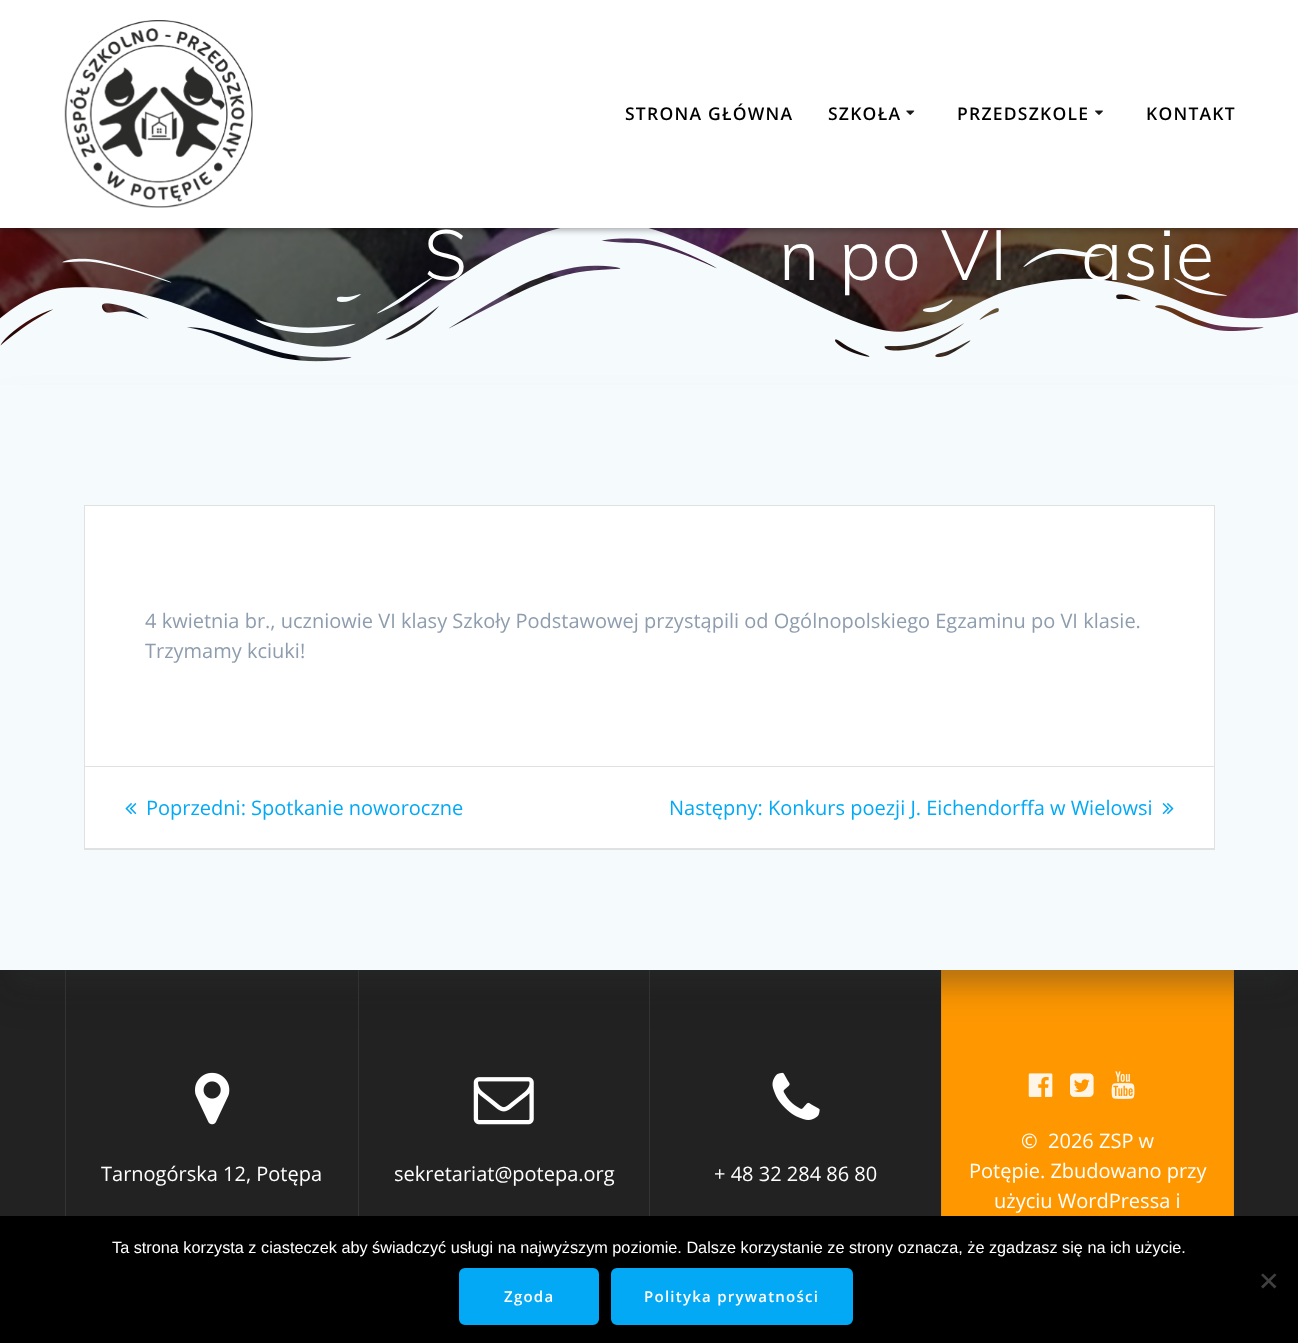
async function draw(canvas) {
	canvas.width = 1298;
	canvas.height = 1343;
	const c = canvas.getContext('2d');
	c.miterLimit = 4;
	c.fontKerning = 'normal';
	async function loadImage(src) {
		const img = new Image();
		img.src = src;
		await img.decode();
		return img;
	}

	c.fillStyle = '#fff';
	c.fillRect(0, 0, 1298, 1343);
	c.drawImage(await loadImage('img4.png'), 0, 228, 1298, 134);
	c.drawImage(await loadImage('img5.png'), 0, 228, 1298, 157);
	c.fillStyle = '#00000054';
	c.filter = 'blur(3px)';
	c.beginPath();
	c.rect(-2, -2, 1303, 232);
	c.fill();
	c.filter = 'none';
	c.fillStyle = '#fff';
	c.fillRect(0, 0, 1298, 228);
	c.drawImage(await loadImage('img1.png'), 64, 20, 189, 188);
	c.letterSpacing = '1.25px';
	c.font = '600 17.5px Open Sans';
	c.fillStyle = '#000';
	c.fillText('STRONA GŁÓWNA', 625, 120);
	c.fillText('SZKOŁA', 828, 120);
	c.drawImage(await loadImage('img2.png'), 906, 110, 9, 5);
	c.fillText('PRZEDSZKOLE', 957, 120);
	c.drawImage(await loadImage('img3.png'), 1095, 110, 8, 5);
	c.fillText('KONTAKT', 1146, 120);
	c.letterSpacing = '1px';
	c.font = '300 70px Muli';
	c.fillStyle = '#fff';
	for (const [text, x, y] of [
		['S', 424, 280],
		['n po VI', 779, 280],
		['asie', 1081, 280],
	]) {
		c.fillText(text, x, y);
	}
	for (const [x, y, w, h, color] of [
		[0, 970, 1298, 246, '#222'],
		[65, 969, 1, 247, '#353535'],
		[358, 969, 1, 247, '#353535'],
		[649, 969, 1, 247, '#353535'],
		[942, 970, 291, 246, '#ff9800'],
		[1233, 969, 1, 247, '#e6931a'],
		[941, 969, 1, 247, '#e6931a'],
	]) {
		c.fillStyle = color;
		c.fillRect(x, y, w, h);
	}
	c.fillStyle = '#00000014';
	c.filter = 'blur(19px)';
	c.beginPath();
	c.rect(0, 410, 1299, 585);
	c.fill();
	c.filter = 'none';
	c.fillStyle = '#3134394d';
	c.filter = 'blur(12.5px)';
	c.beginPath();
	c.rect(13, 423, 1273, 560);
	c.fill();
	c.filter = 'none';
	c.fillStyle = '#f5fafd';
	c.fillRect(0, 385, 1298, 585);
	c.fillStyle = '#fff';
	c.fillRect(85, 506, 1129, 342);
	c.strokeStyle = '#e0e1e1';
	c.strokeRect(84.5, 505.5, 1130, 344);
	c.letterSpacing = '0px';
	c.font = '20px Open Sans';
	c.fillStyle = '#8e9dae';
	c.fillText('4 kwietnia br., uczniowie VI klasy Szkoły Podstawowej przystąpili od Ogólnopolskiego Egzaminu po VI klasie.', 145, 628);
	c.fillText('Trzymamy kciuki!', 145, 658);
	c.fillStyle = '#e0e1e1';
	c.fillRect(85, 766, 1129, 1);
	c.fillRect(85, 848, 1129, 1);
	c.drawImage(await loadImage('img6.png'), 125, 803, 12, 12);
	c.fillStyle = '#03a9f4';
	c.fillText('Poprzedni: Spotkanie noworoczne', 146, 815);
	c.fillText('Następny: Konkurs poezji J. Eichendorffa w Wielowsi', 669, 815);
	c.drawImage(await loadImage('img7.png'), 1162, 803, 12, 12);
	c.drawImage(await loadImage('img8.png'), 195, 1072, 35, 53);
	c.fillStyle = '#fff';
	c.fillText('Tarnogórska 12, Potępa', 101, 1181);
	c.drawImage(await loadImage('img9.png'), 473, 1077, 61, 48);
	c.fillText('sekretariat@potepa.org', 394, 1181);
	c.drawImage(await loadImage('img10.png'), 772, 1072, 48, 48);
	c.fillText('+ 48 32 284 86 80', 714, 1181);
	c.drawImage(await loadImage('img11.png'), 1028, 1073, 25, 24);
	c.drawImage(await loadImage('img12.png'), 1070, 1073, 24, 24);
	c.drawImage(await loadImage('img13.png'), 1111, 1071, 24, 28);
	for (const [text, x, y] of [
		['©  2026 ZSP w', 1021, 1148],
		['Potępie. Zbudowano przy', 969, 1178],
		['użyciu WordPressa i', 994, 1208],
	]) {
		c.fillText(text, x, y);
	}
	c.fillStyle = '#000';
	c.fillRect(0, 1216, 1298, 127);
	c.font = '16.25px Liberation Sans';
	c.fillStyle = '#fff';
	c.fillText('Ta strona korzysta z ciasteczek aby świadczyć usługi na najwyższym poziomie. Dalsze korzystanie ze strony oznacza, że zgadzasz się na ich użycie.', 112, 1253);
	c.fillStyle = '#404040';
	c.beginPath();
	c.moveTo(1274.5, 1273.5);
	c.lineTo(1276.5, 1275);
	c.lineTo(1263, 1288.5);
	c.lineTo(1261, 1286.5);
	c.closePath();
	c.fill();
	c.beginPath();
	c.moveTo(1261, 1275);
	c.lineTo(1263, 1273.5);
	c.lineTo(1276.5, 1286.5);
	c.lineTo(1274.5, 1288.5);
	c.closePath();
	c.fill();
	c.fillStyle = '#03a9f4';
	c.beginPath();
	c.roundRect(460.5, 1269.5, 137, 54, 4.5);
	c.fill();
	c.strokeStyle = '#03a9f4';
	c.lineWidth = 3;
	c.stroke();
	c.letterSpacing = '1.25px';
	c.font = '600 15px Open Sans';
	c.fillStyle = '#fff';
	c.fillText('Zgoda', 504, 1302);
	c.fillStyle = '#03a9f4';
	c.beginPath();
	c.roundRect(612.5, 1269.5, 239, 54, 4.5);
	c.fill();
	c.stroke();
	c.fillStyle = '#fff';
	c.fillText('Polityka prywatności', 644, 1302);
}

draw(document.querySelector('canvas'));
